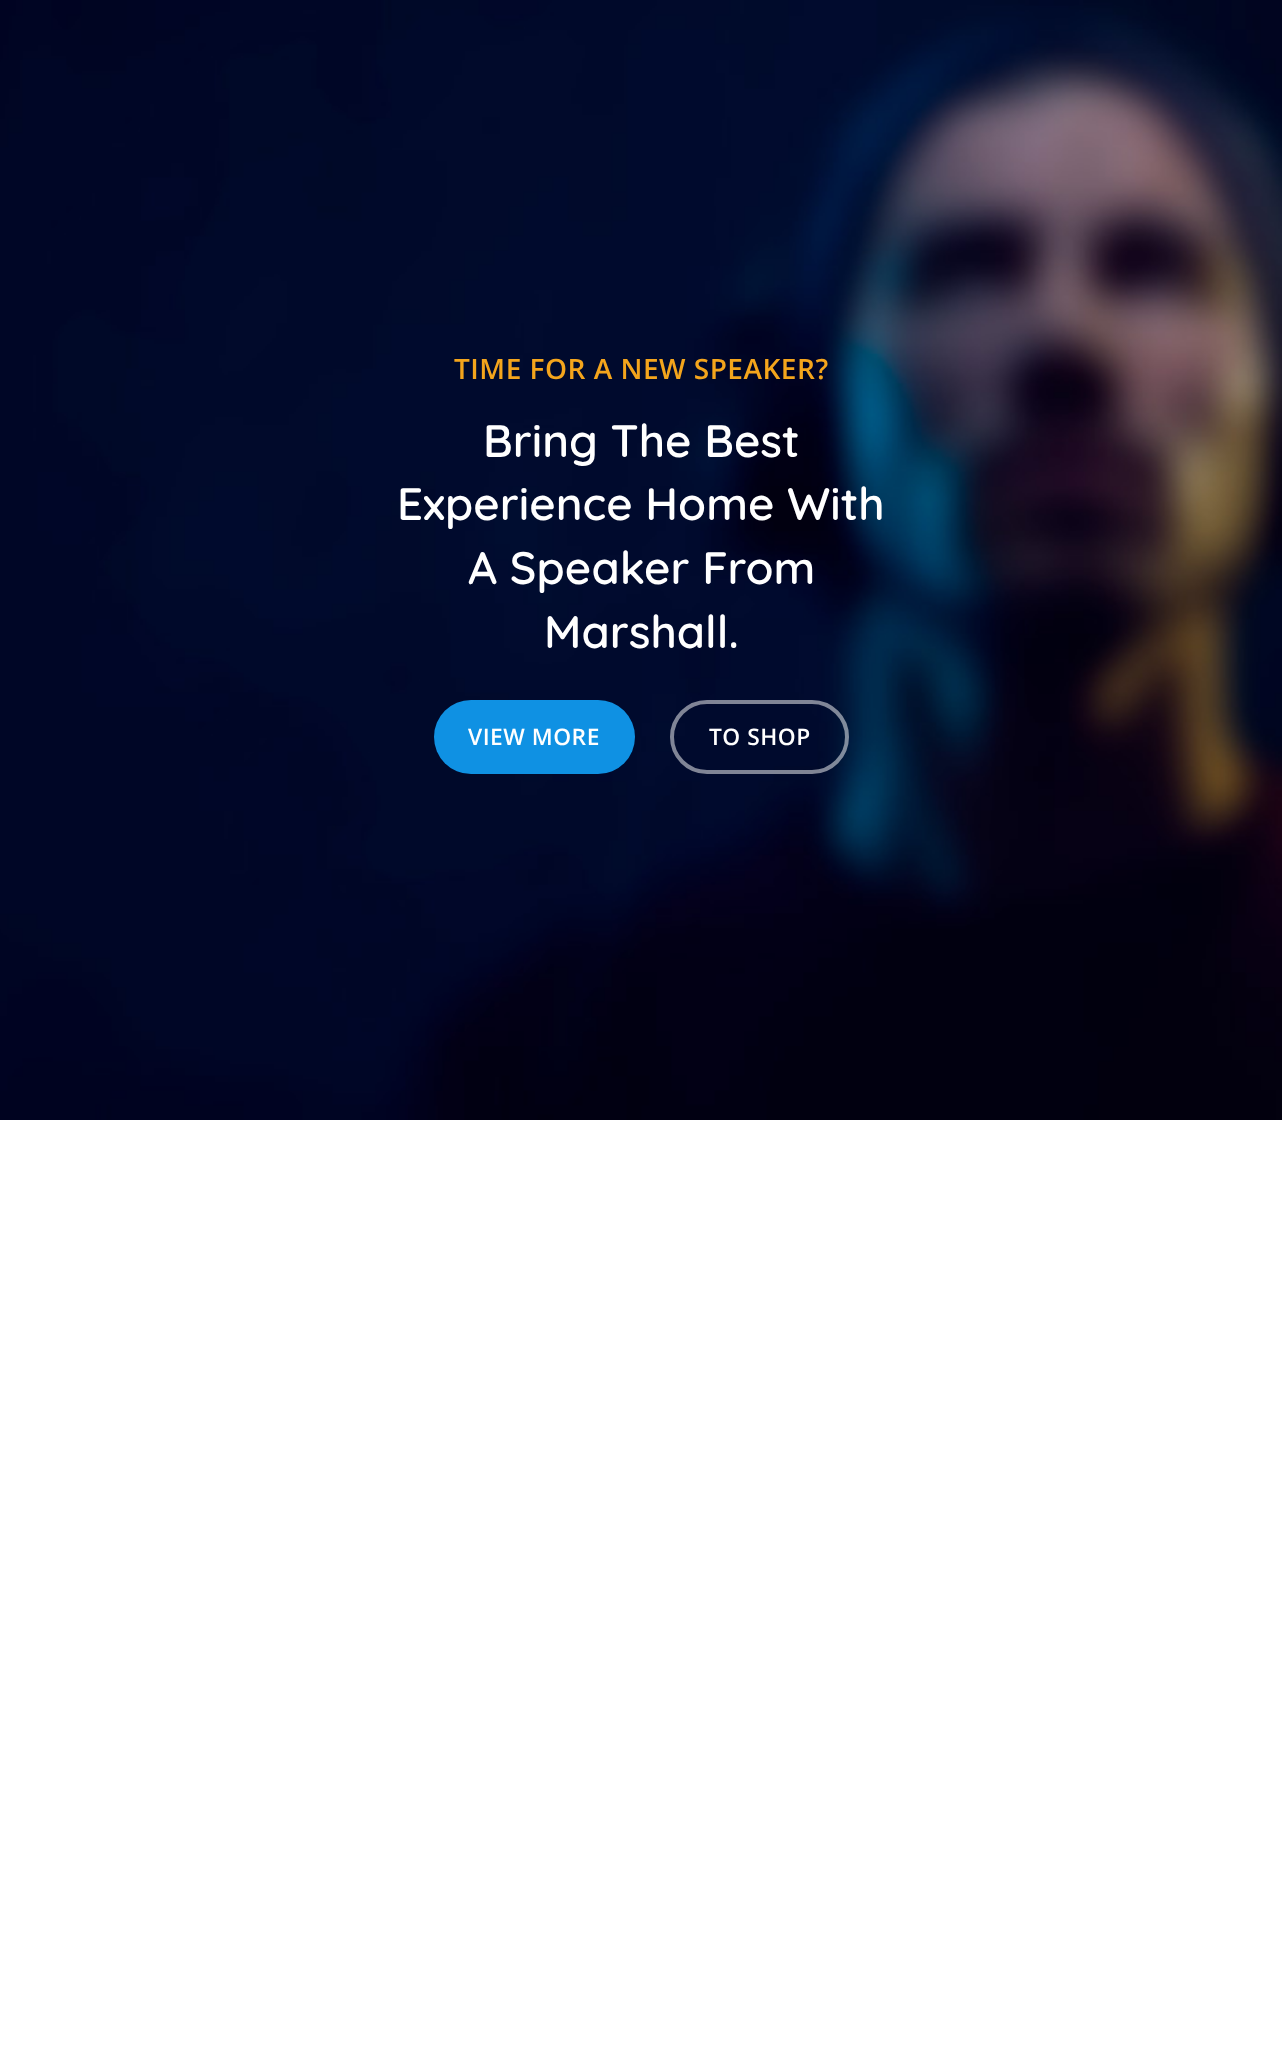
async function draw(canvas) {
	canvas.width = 1282;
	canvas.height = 2049;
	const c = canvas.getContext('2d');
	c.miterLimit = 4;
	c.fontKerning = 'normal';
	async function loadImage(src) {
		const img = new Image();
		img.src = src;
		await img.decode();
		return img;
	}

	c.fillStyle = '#fff';
	c.fillRect(0, 0, 1282, 2049);
	c.drawImage(await loadImage('img1.png'), 0, 0, 1282, 1120);
	c.letterSpacing = '0.5px';
	c.font = '600 28px Open Sans';
	c.fillStyle = '#f4a51c';
	c.fillText('TIME FOR A NEW SPEAKER?', 454, 379);
	c.letterSpacing = '0px';
	c.font = '600 45.5px Quicksand';
	c.fillStyle = '#fff';
	for (const [text, x, y] of [
		['Bring The Best', 483, 457],
		['Experience Home With', 397, 520],
		['A Speaker From', 468, 584],
		['Marshall.', 544, 648],
	]) {
		c.fillText(text, x, y);
	}
	c.fillStyle = '#0f91e3';
	c.beginPath();
	c.roundRect(434, 700, 201, 74, 37);
	c.fill();
	c.letterSpacing = '0.5px';
	c.font = '600 22.75px Open Sans';
	c.fillStyle = '#fff';
	c.fillText('VIEW MORE', 468, 745);
	c.beginPath();
	c.roundRect(672, 702, 175, 70, 35);
	c.strokeStyle = '#ffffff80';
	c.lineWidth = 4;
	c.stroke();
	c.fillText('TO SHOP', 709, 745);
}

draw(document.querySelector('canvas'));
